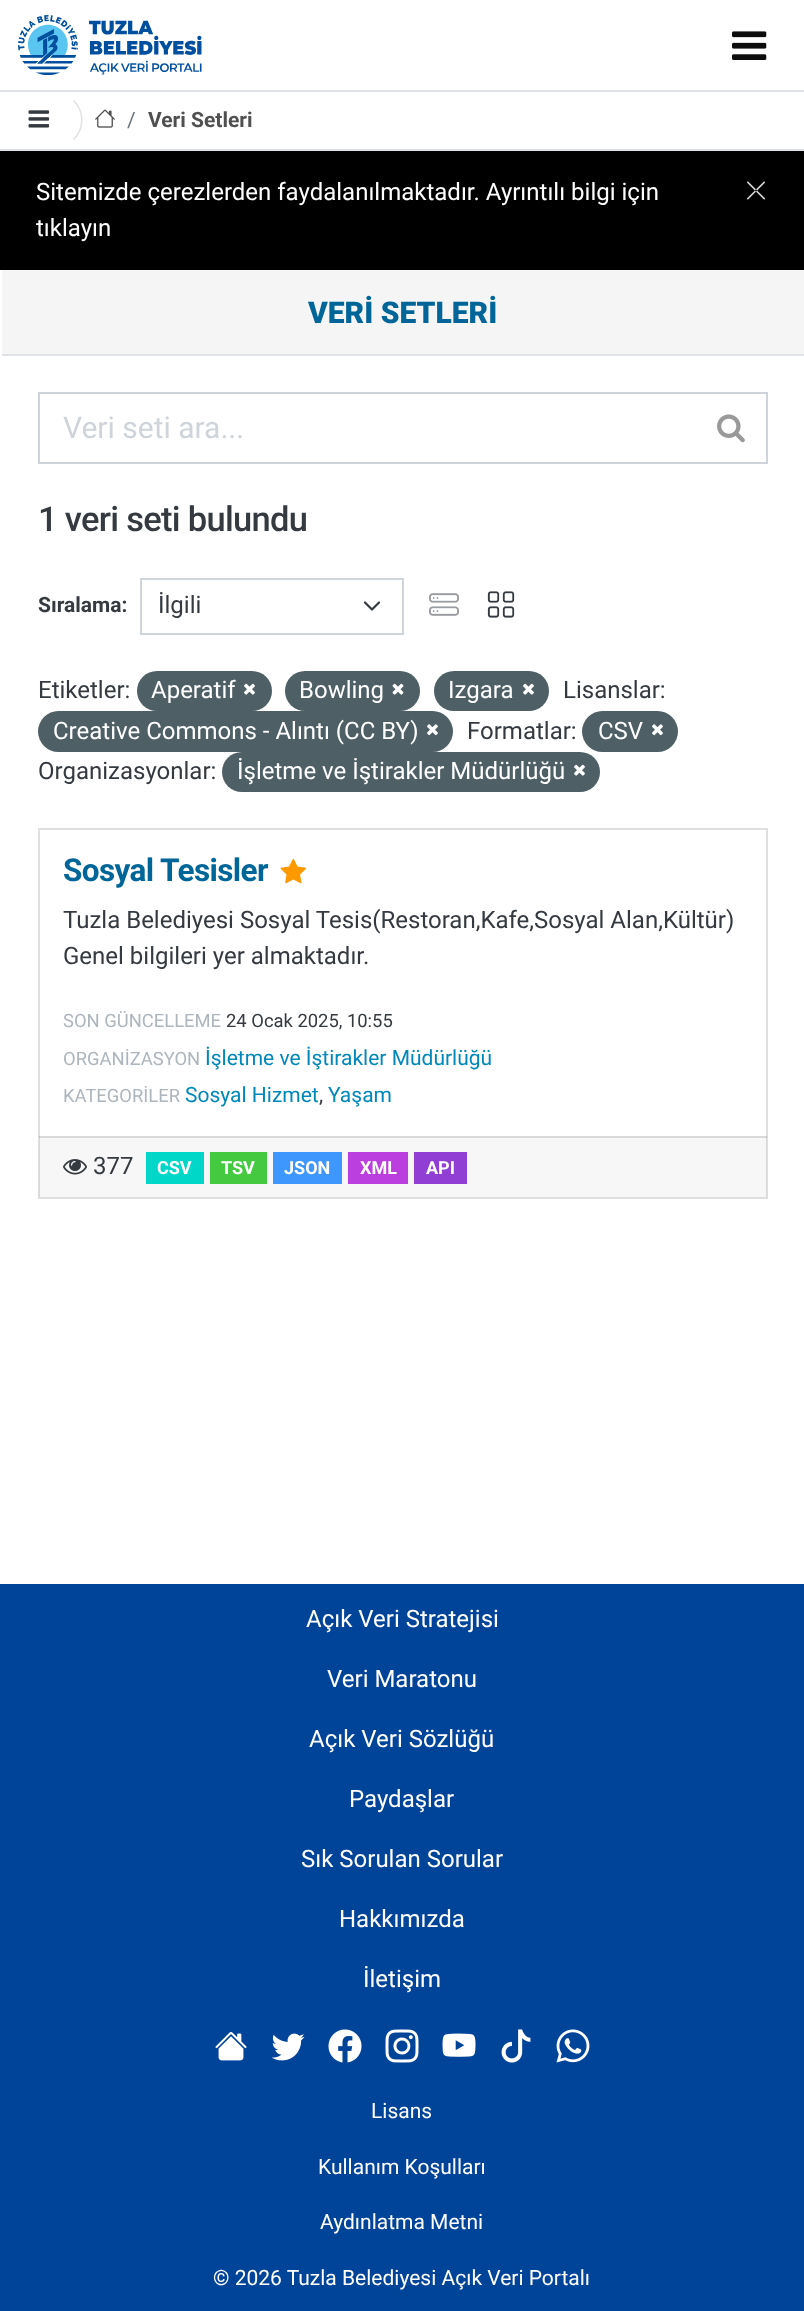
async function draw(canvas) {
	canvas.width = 804;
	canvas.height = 2311;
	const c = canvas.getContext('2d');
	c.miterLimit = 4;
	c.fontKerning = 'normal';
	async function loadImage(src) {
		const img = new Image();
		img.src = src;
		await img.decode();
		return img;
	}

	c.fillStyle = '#fff';
	c.fillRect(0, 0, 804, 2311);
	c.drawImage(await loadImage('img1.png'), 18, 15, 184, 60);
	c.drawImage(await loadImage('img2.png'), 732, 31, 35, 29);
	c.fillStyle = '#dee2e6';
	c.fillRect(0, 90, 804, 2);
	c.fillRect(0, 149, 804, 2);
	c.beginPath();
	c.moveTo(73.5, 100.5);
	c.bezierCurveTo(84.5, 111, 84.5, 129, 73.5, 139.5);
	c.strokeStyle = '#dee2e6';
	c.lineWidth = 1.5;
	c.stroke();
	c.drawImage(await loadImage('img3.png'), 28, 110, 22, 18);
	c.drawImage(await loadImage('img4.png'), 95, 109, 20, 19);
	c.font = '21px Roboto';
	c.fillStyle = '#6c757d';
	c.fillText('/', 127, 127);
	c.font = 'bold 21px Roboto';
	c.fillStyle = '#505050';
	c.fillText('Veri Setleri', 148, 127);
	c.fillStyle = '#000';
	c.fillRect(0, 151, 804, 119);
	c.font = '24px Roboto';
	c.fillStyle = '#fff';
	c.fillText('Sitemizde çerezlerden faydalanılmaktadır. Ayrıntılı bilgi için', 36, 200);
	c.fillText('tıklayın', 36, 236);
	c.drawImage(await loadImage('img5.png'), 747, 181, 18, 19);
	c.fillStyle = '#f5f5f5';
	c.fillRect(2, 270, 802, 84);
	c.fillStyle = '#dee2e6';
	c.fillRect(2, 354, 802, 2);
	c.font = '900 30px Roboto';
	c.fillStyle = '#069';
	c.fillText('VERİ SETLERİ', 308, 323);
	c.strokeStyle = '#ced4da';
	c.lineWidth = 2;
	c.strokeRect(39, 393, 728, 70);
	c.font = '30px Roboto';
	c.fillStyle = '#ced4da';
	c.fillText('Veri seti ara...', 63, 438);
	c.drawImage(await loadImage('img6.png'), 717, 414, 28, 29);
	c.letterSpacing = '-0.7px';
	c.font = '500 34.5px Roboto';
	c.fillStyle = '#343a40';
	c.fillText('1 veri seti bulundu', 38, 531);
	c.letterSpacing = '0px';
	c.font = 'bold 21px Roboto';
	c.fillText('Sıralama:', 38, 612);
	c.beginPath();
	c.moveTo(365, 602.5);
	c.lineTo(372, 609.5);
	c.lineTo(379, 602.5);
	c.strokeStyle = '#343a40';
	c.lineWidth = 2.2;
	c.lineCap = 'round';
	c.lineJoin = 'round';
	c.stroke();
	c.strokeStyle = '#ced4da';
	c.lineWidth = 2;
	c.lineJoin = 'miter';
	c.strokeRect(141, 579, 262, 55);
	c.font = '24px Roboto';
	c.fillText('İlgili', 158, 613);
	c.drawImage(await loadImage('img7.png'), 429, 593, 30, 23);
	c.drawImage(await loadImage('img8.png'), 487, 591, 28, 27);
	c.fillText('Etiketler:', 38, 698);
	c.fillStyle = '#4e5f65';
	c.beginPath();
	c.roundRect(137, 671, 135, 40, 20);
	c.fill();
	c.fillStyle = '#fff';
	c.fillText('Aperatif', 151, 698);
	c.drawImage(await loadImage('img9.png'), 244, 683, 11, 12);
	c.fillStyle = '#4e5f65';
	c.beginPath();
	c.roundRect(285, 671, 135, 40, 20);
	c.fill();
	c.fillStyle = '#fff';
	c.fillText('Bowling', 299, 698);
	c.drawImage(await loadImage('img10.png'), 392, 683, 12, 12);
	c.fillStyle = '#4e5f65';
	c.beginPath();
	c.roundRect(434, 671, 115, 40, 20);
	c.fill();
	c.fillStyle = '#fff';
	c.fillText('Izgara', 448, 698);
	c.drawImage(await loadImage('img9.png'), 523, 683, 11, 12);
	c.fillStyle = '#343a40';
	c.fillText('Lisanslar:', 563, 698);
	c.fillStyle = '#4e5f65';
	c.beginPath();
	c.roundRect(38, 711, 415, 41, 20.5);
	c.fill();
	c.fillStyle = '#fff';
	c.fillText('Creative Commons - Alıntı (CC BY)', 53, 739);
	c.drawImage(await loadImage('img11.png'), 427, 724, 11, 12);
	c.fillStyle = '#343a40';
	c.fillText('Formatlar:', 467, 739);
	c.fillStyle = '#4e5f65';
	c.beginPath();
	c.roundRect(582, 711, 96, 41, 20.5);
	c.fill();
	c.fillStyle = '#fff';
	c.fillText('CSV', 598, 739);
	c.drawImage(await loadImage('img11.png'), 652, 724, 11, 12);
	c.fillStyle = '#343a40';
	c.fillText('Organizasyonlar:', 38, 779);
	c.fillStyle = '#4e5f65';
	c.beginPath();
	c.roundRect(222, 752, 378, 40, 20);
	c.fill();
	c.fillStyle = '#fff';
	c.fillText('İşletme ve İştirakler Müdürlüğü', 237, 779);
	c.drawImage(await loadImage('img9.png'), 574, 764, 11, 12);
	c.strokeStyle = '#dfdfdf';
	c.strokeRect(39, 829, 728, 369);
	c.letterSpacing = '-0.6px';
	c.font = 'bold 31.5px Roboto';
	c.fillStyle = '#069';
	c.fillText('Sosyal Tesisler', 63, 881);
	c.drawImage(await loadImage('img12.png'), 280, 858, 27, 26);
	c.letterSpacing = '0px';
	c.font = '24px Roboto';
	c.fillStyle = '#343a40';
	c.fillText('Tuzla Belediyesi Sosyal Tesis(Restoran,Kafe,Sosyal Alan,Kültür)', 63, 928);
	c.fillText('Genel bilgileri yer almaktadır.', 63, 964);
	c.font = '18.4px Roboto';
	c.fillStyle = '#adb5bd';
	c.fillText('SON GÜNCELLEME', 63, 1027);
	c.fillStyle = '#343a40';
	c.fillText('24 Ocak 2025, 10:55', 226, 1027);
	c.fillStyle = '#adb5bd';
	c.fillText('ORGANİZASYON', 63, 1065);
	c.font = '21px Roboto';
	c.fillStyle = '#08b';
	c.fillText('İşletme ve İştirakler Müdürlüğü', 205, 1065);
	c.font = '18.4px Roboto';
	c.fillStyle = '#adb5bd';
	c.fillText('KATEGORİLER', 63, 1102);
	c.font = '21px Roboto';
	c.fillStyle = '#08b';
	c.fillText('Sosyal Hizmet', 185, 1102);
	c.fillStyle = '#343a40';
	c.fillText(',', 319, 1102);
	c.fillStyle = '#08b';
	c.fillText('Yaşam', 328, 1102);
	c.fillStyle = '#00000008';
	c.fillRect(39, 1136, 728, 61);
	c.fillStyle = '#0000001f';
	c.fillRect(39, 1136, 728, 2);
	c.drawImage(await loadImage('img13.png'), 63, 1159, 24, 16);
	c.font = '24px Roboto';
	c.fillStyle = '#343a40';
	c.fillText('377', 93, 1174);
	c.fillStyle = '#01d7c9';
	c.fillRect(146, 1152, 58, 32);
	c.font = 'bold 18px Roboto';
	c.fillStyle = '#fff';
	c.fillText('CSV', 157, 1174);
	c.fillStyle = '#45c941';
	c.fillRect(210, 1152, 57, 32);
	c.fillStyle = '#fff';
	c.fillText('TSV', 221, 1174);
	c.fillStyle = '#3e97fd';
	c.fillRect(273, 1152, 69, 32);
	c.fillStyle = '#fff';
	c.fillText('JSON', 284, 1174);
	c.fillStyle = '#bb3ede';
	c.fillRect(348, 1152, 60, 32);
	c.fillStyle = '#fff';
	c.fillText('XML', 360, 1174);
	c.fillStyle = '#903ed3';
	c.fillRect(414, 1152, 53, 32);
	c.fillStyle = '#fff';
	c.fillText('API', 426, 1174);
	c.fillStyle = '#049';
	c.fillRect(0, 1584, 804, 727);
	c.font = '24px Roboto';
	c.fillStyle = '#fff';
	for (const [text, x, y] of [
		['Açık Veri Stratejisi', 306, 1627],
		['Veri Maratonu', 327, 1687],
		['Açık Veri Sözlüğü', 309, 1747],
		['Paydaşlar', 349, 1807],
		['Sık Sorulan Sorular', 301, 1867],
		['Hakkımızda', 339, 1927],
		['İletişim', 363, 1987],
	]) {
		c.fillText(text, x, y);
	}
	c.drawImage(await loadImage('img14.png'), 215, 2032, 32, 29);
	c.drawImage(await loadImage('img15.png'), 271, 2033, 34, 28);
	c.drawImage(await loadImage('img16.png'), 328, 2029, 34, 34);
	c.drawImage(await loadImage('img17.png'), 385, 2029, 34, 34);
	c.drawImage(await loadImage('img18.png'), 442, 2033, 34, 24);
	c.drawImage(await loadImage('img19.png'), 501, 2029, 30, 34);
	c.drawImage(await loadImage('img20.png'), 556, 2029, 34, 34);
	c.font = '21px Roboto';
	for (const [text, x, y] of [
		['Lisans', 371, 2118],
		['Kullanım Koşulları', 318, 2174],
		['Aydınlatma Metni', 320, 2229],
		['© 2026 Tuzla Belediyesi Açık Veri Portalı', 213, 2285],
	]) {
		c.fillText(text, x, y);
	}
}

draw(document.querySelector('canvas'));
